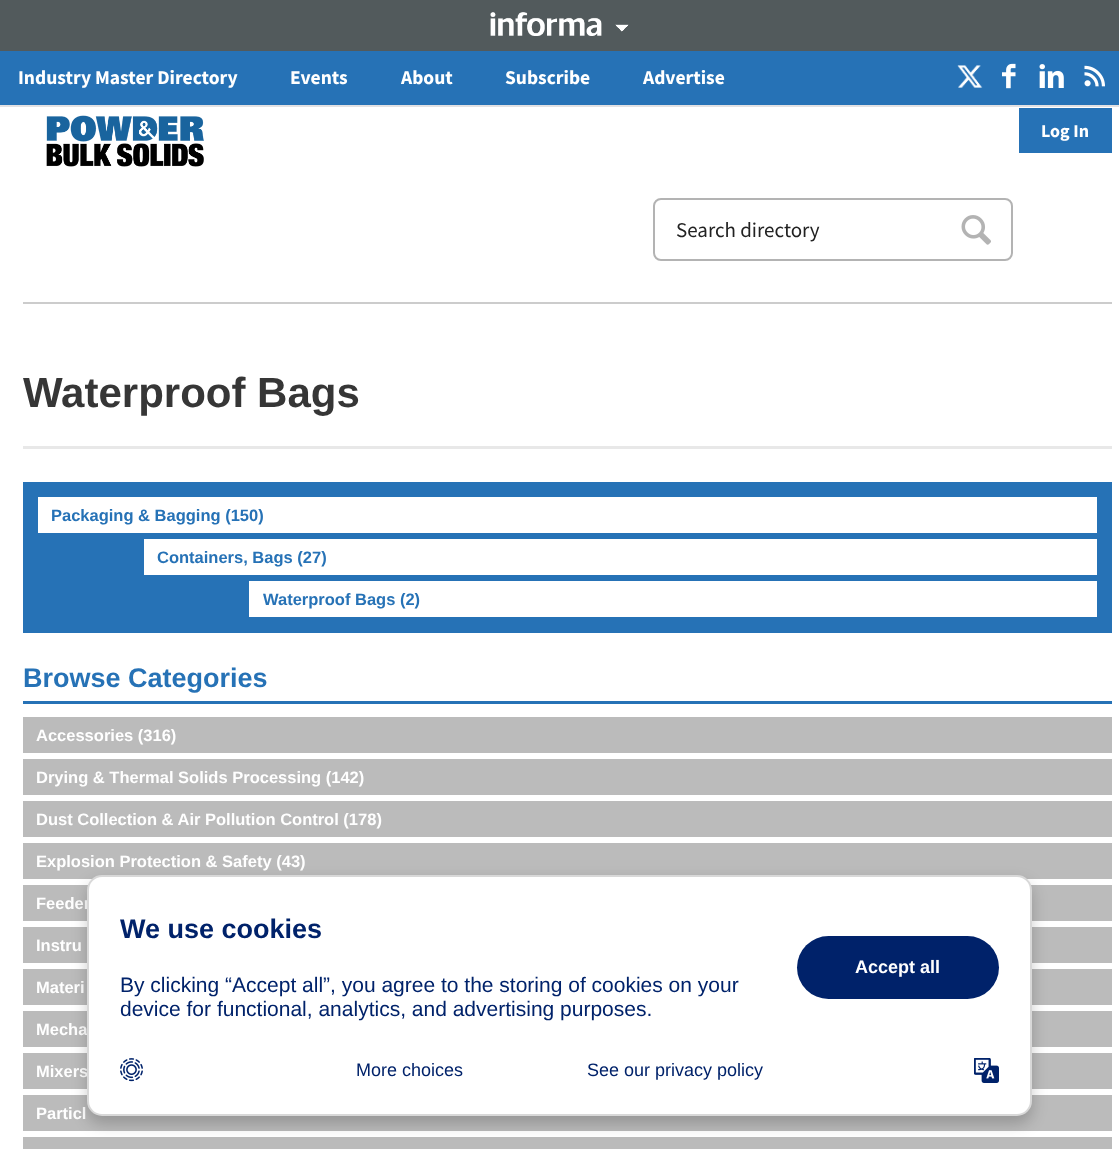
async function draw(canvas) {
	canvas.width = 1119;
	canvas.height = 1149;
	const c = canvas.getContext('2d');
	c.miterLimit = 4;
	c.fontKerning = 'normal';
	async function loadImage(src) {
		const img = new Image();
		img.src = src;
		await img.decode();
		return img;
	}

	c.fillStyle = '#fff';
	c.fillRect(0, 0, 1119, 1149);
	c.fillStyle = '#525a5c';
	c.fillRect(0, 0, 1119, 51);
	c.drawImage(await loadImage('img1.png'), 490, 12, 139, 24);
	c.fillStyle = '#2672b6';
	c.fillRect(0, 51, 1119, 54);
	c.fillStyle = '#e2e1e3';
	c.fillRect(0, 105, 1119, 2);
	c.font = 'bold 19.5px Source Sans Pro';
	c.fillStyle = '#fff';
	for (const [text, x, y] of [
		['Industry Master Directory', 18, 84],
		['Events', 290, 84],
		['About', 401, 84],
		['Subscribe', 505, 84],
		['Advertise', 643, 84],
	]) {
		c.fillText(text, x, y);
	}
	c.drawImage(await loadImage('img2.png'), 957, 65, 26, 23);
	c.drawImage(await loadImage('img3.png'), 1002, 63, 14, 26);
	c.drawImage(await loadImage('img4.png'), 1039, 64, 25, 24);
	c.drawImage(await loadImage('img5.png'), 1084, 65, 21, 22);
	c.drawImage(await loadImage('img6.png'), 46, 115, 158, 52);
	c.fillStyle = '#2672b6';
	c.fillRect(1019, 108, 93, 45);
	c.font = 'bold 18px Source Sans Pro';
	c.fillStyle = '#fff';
	c.fillText('Log In', 1041, 137);
	c.beginPath();
	c.roundRect(654, 199, 358, 61, 7);
	c.strokeStyle = '#b3b3b3';
	c.lineWidth = 2;
	c.stroke();
	c.font = '21px Source Sans Pro';
	c.fillStyle = '#222';
	c.fillText('Search directory', 676, 237);
	c.drawImage(await loadImage('img7.png'), 961, 215, 30, 30);
	c.fillStyle = '#ccc';
	c.fillRect(23, 302, 1089, 2);
	c.font = 'bold 42px Liberation Sans';
	c.fillStyle = '#363636';
	c.fillText('Waterproof Bags', 23, 407);
	for (const [x, y, w, h, color] of [
		[23, 446, 1089, 3, '#e8e8e8'],
		[23, 482, 1089, 151, '#2672b6'],
		[38, 497, 1059, 36, '#fff'],
	]) {
		c.fillStyle = color;
		c.fillRect(x, y, w, h);
	}
	c.font = 'bold 16.5px Liberation Sans';
	c.fillStyle = '#2672b6';
	c.fillText('Packaging & Bagging (150)', 51, 521);
	c.fillStyle = '#fff';
	c.fillRect(144, 539, 953, 36);
	c.fillStyle = '#2672b6';
	c.fillText('Containers, Bags (27)', 157, 563);
	c.fillStyle = '#fff';
	c.fillRect(249, 581, 848, 36);
	c.fillStyle = '#2672b6';
	c.fillText('Waterproof Bags (2)', 263, 605);
	c.fillRect(23, 701, 1089, 3);
	c.font = 'bold 27px Liberation Sans';
	c.fillText('Browse Categories', 23, 687);
	c.fillStyle = '#bbb';
	c.fillRect(23, 717, 1089, 36);
	c.font = 'bold 16.5px Liberation Sans';
	c.fillStyle = '#fff';
	c.fillText('Accessories (316)', 36, 741);
	c.fillStyle = '#bbb';
	c.fillRect(23, 759, 1089, 36);
	c.fillStyle = '#fff';
	c.fillText('Drying & Thermal Solids Processing (142)', 36, 783);
	c.fillStyle = '#bbb';
	c.fillRect(23, 801, 1089, 36);
	c.fillStyle = '#fff';
	c.fillText('Dust Collection & Air Pollution Control (178)', 36, 825);
	c.fillStyle = '#bbb';
	c.fillRect(23, 843, 1089, 36);
	c.fillStyle = '#fff';
	c.fillText('Explosion Protection & Safety (43)', 36, 867);
	c.fillStyle = '#bbb';
	c.fillRect(23, 885, 1089, 36);
	c.fillStyle = '#fff';
	c.fillText('Feeder', 36, 909);
	c.fillStyle = '#bbb';
	c.fillRect(23, 927, 1089, 36);
	c.fillStyle = '#fff';
	c.fillText('Instru', 36, 951);
	c.fillStyle = '#bbb';
	c.fillRect(23, 969, 1089, 36);
	c.fillStyle = '#fff';
	c.fillText('Materi', 36, 993);
	c.fillStyle = '#bbb';
	c.fillRect(23, 1011, 1089, 36);
	c.fillStyle = '#fff';
	c.fillText('Mecha', 36, 1035);
	c.fillStyle = '#bbb';
	c.fillRect(23, 1053, 1089, 36);
	c.fillStyle = '#fff';
	c.fillText('Mixers', 36, 1077);
	c.fillStyle = '#bbb';
	c.fillRect(23, 1095, 1089, 36);
	c.fillStyle = '#fff';
	c.fillText('Particl', 36, 1119);
	c.fillStyle = '#bbb';
	c.fillRect(23, 1137, 1089, 12);
	c.fillStyle = '#00000033';
	c.filter = 'blur(7.5px)';
	c.beginPath();
	c.roundRect(87, 882, 945, 242, 15);
	c.fill();
	c.filter = 'none';
	c.fillStyle = '#fff';
	c.beginPath();
	c.roundRect(88, 876, 943, 239, 14);
	c.fill();
	c.strokeStyle = '#d8d8d8';
	c.stroke();
	c.font = 'bold 27px Liberation Sans';
	c.fillStyle = '#00226a';
	c.fillText('We use cookies', 120, 938);
	c.font = '21px Liberation Sans';
	c.fillText('By clicking “Accept all”, you agree to the storing of cookies on your', 120, 992);
	c.fillText('device for functional, analytics, and advertising purposes.', 120, 1016);
	c.beginPath();
	c.roundRect(797, 936, 202, 63, 31.5);
	c.fill();
	c.font = 'bold 18px Liberation Sans';
	c.fillStyle = '#fff';
	c.fillText('Accept all', 855, 973);
	c.drawImage(await loadImage('img8.png'), 120, 1058, 23, 24);
	c.font = '18px Liberation Sans';
	c.fillStyle = '#00226a';
	c.fillText('More choices', 356, 1076);
	c.fillText('See our privacy policy', 587, 1076);
	c.drawImage(await loadImage('img9.png'), 974, 1058, 25, 25);
}

draw(document.querySelector('canvas'));
